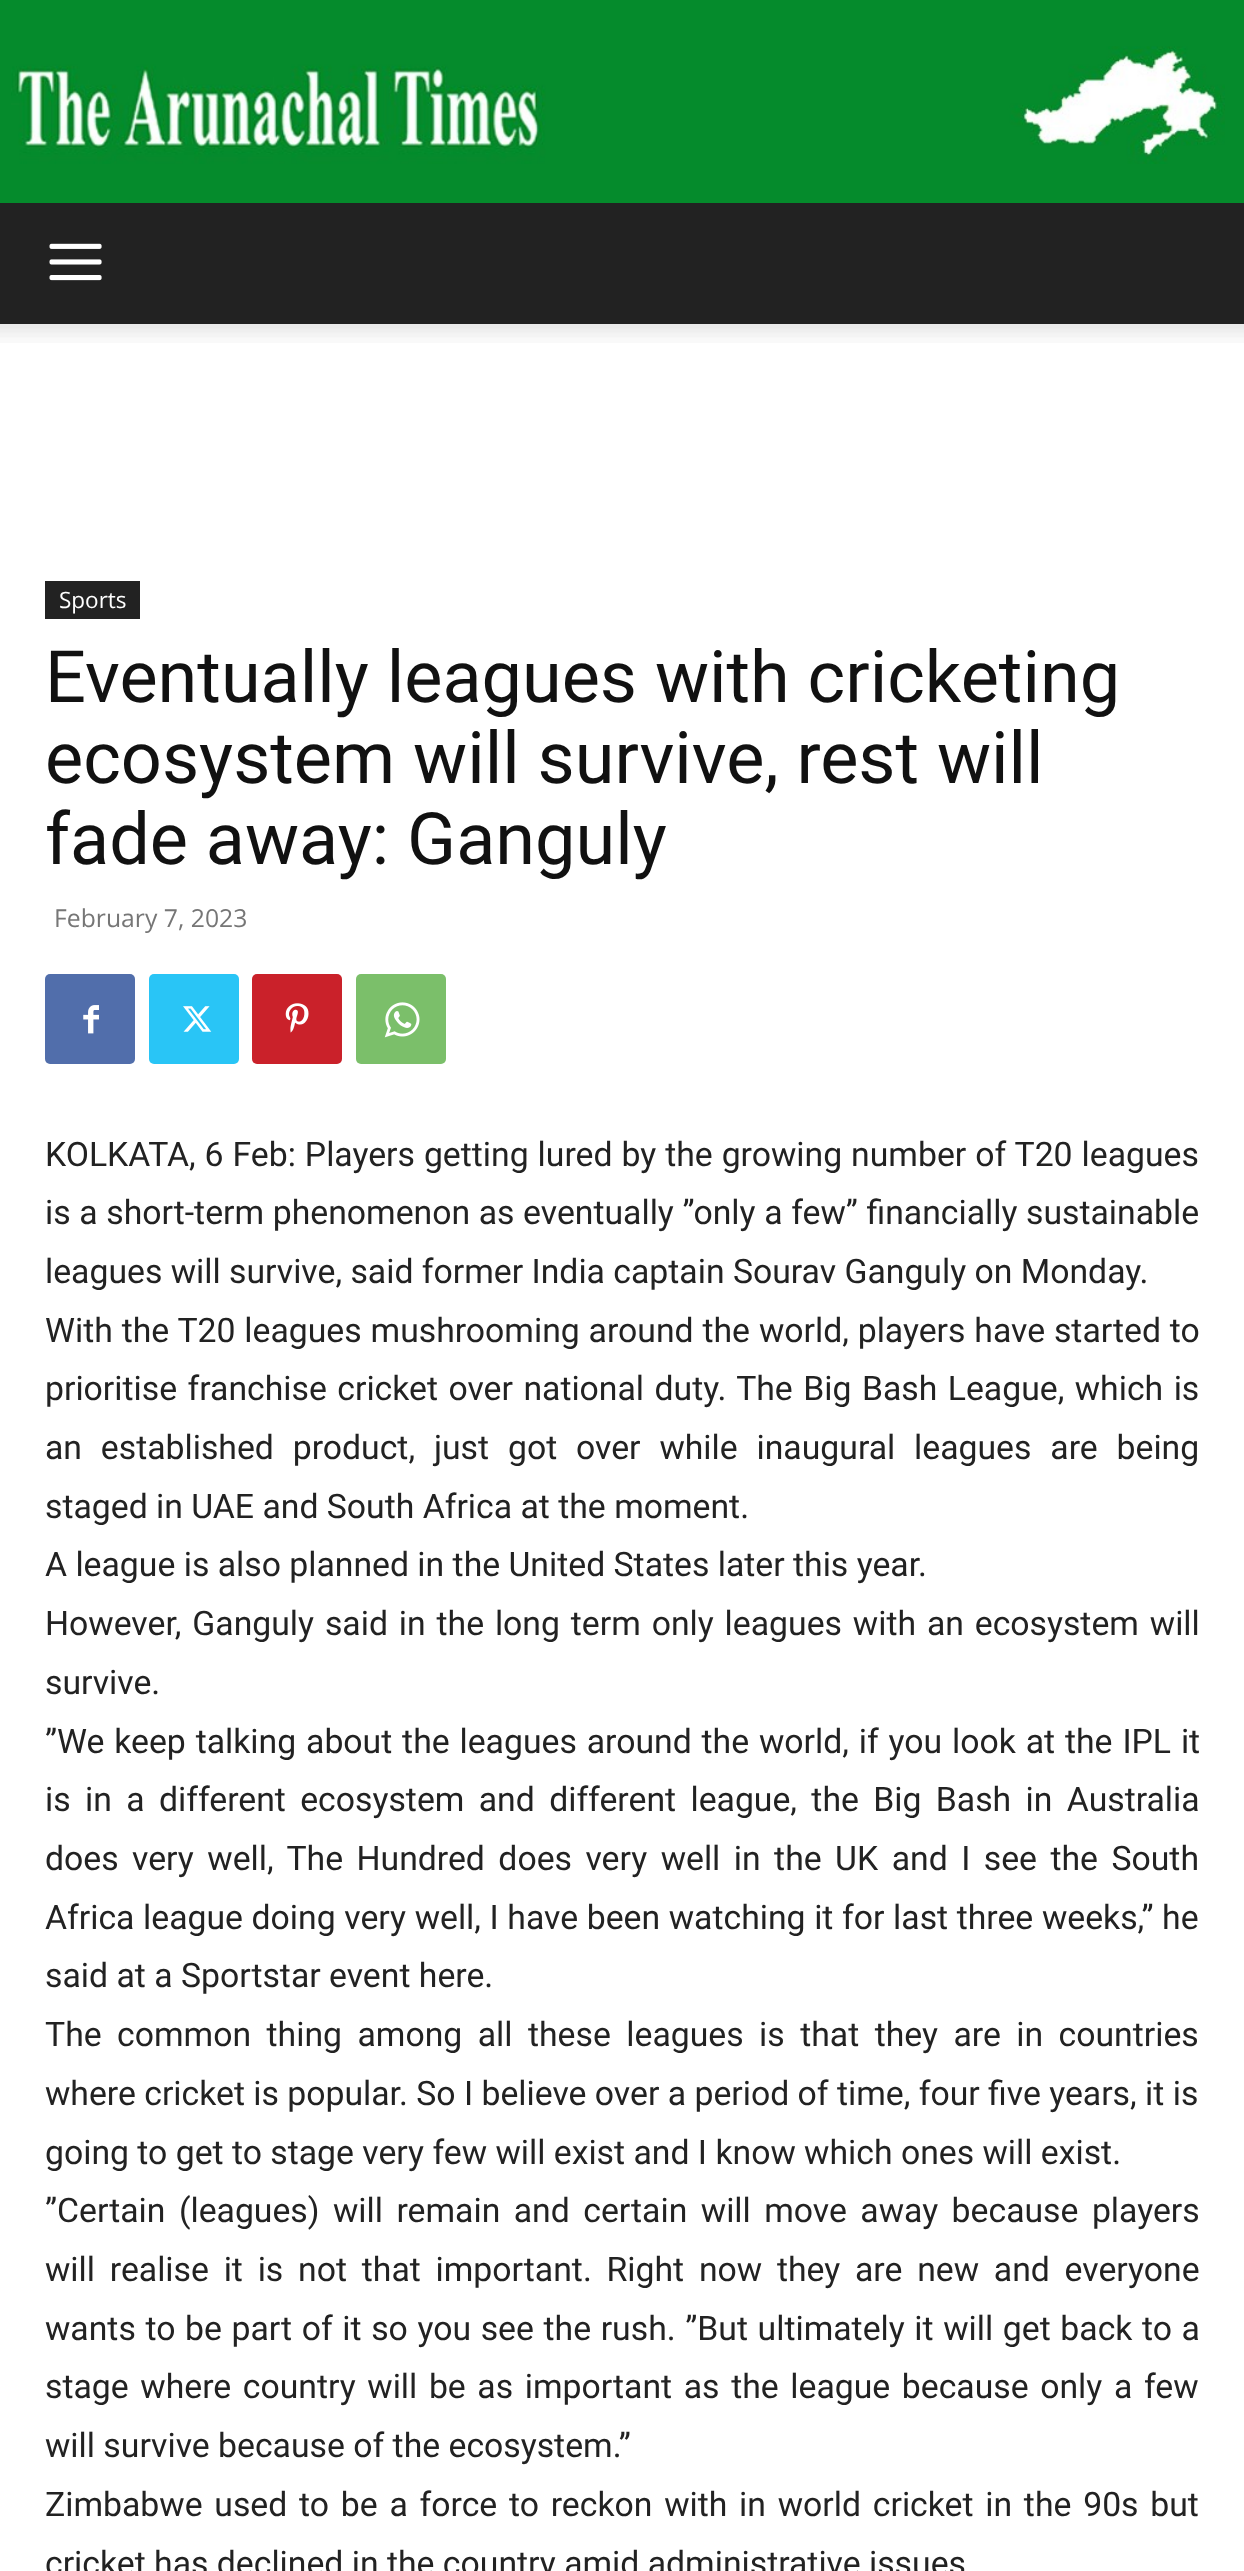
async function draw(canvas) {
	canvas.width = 1244;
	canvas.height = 2571;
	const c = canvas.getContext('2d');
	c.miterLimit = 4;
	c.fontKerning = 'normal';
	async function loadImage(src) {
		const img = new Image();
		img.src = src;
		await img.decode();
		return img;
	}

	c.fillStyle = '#fff';
	c.fillRect(0, 0, 1244, 2571);
	c.fillStyle = '#058b2c';
	c.fillRect(0, 0, 1244, 203);
	c.drawImage(await loadImage('img1.png'), 11, 46, 1214, 118);
	c.fillStyle = '#222';
	c.fillRect(0, 203, 1244, 121);
	c.drawImage(await loadImage('img2.png'), 49, 243, 53, 38);
	c.drawImage(await loadImage('img3.png'), 0, 324, 1244, 19);
	c.fillRect(45, 581, 95, 38);
	c.font = '22.5px Open Sans';
	c.fillStyle = '#fff';
	c.fillText('Sports', 59, 608);
	c.font = '72px Roboto';
	c.fillStyle = '#111';
	for (const [text, x, y] of [
		['Eventually leagues with cricketing', 45, 702],
		['ecosystem will survive, rest will', 45, 783],
		['fade away: Ganguly', 45, 864],
	]) {
		c.fillText(text, x, y);
	}
	c.font = '24.75px Open Sans';
	c.fillStyle = '#767676';
	c.fillText('February 7, 2023', 54, 927);
	c.fillStyle = '#516eab';
	c.beginPath();
	c.roundRect(45, 974, 90, 90, 5);
	c.fill();
	c.drawImage(await loadImage('img4.png'), 83, 1005, 16, 29);
	c.fillStyle = '#29c5f6';
	c.beginPath();
	c.roundRect(149, 974, 90, 90, 5);
	c.fill();
	c.drawImage(await loadImage('img5.png'), 183, 1006, 29, 26);
	c.fillStyle = '#ca212a';
	c.beginPath();
	c.roundRect(252, 974, 90, 90, 5);
	c.fill();
	c.drawImage(await loadImage('img6.png'), 285, 1003, 24, 30);
	c.fillStyle = '#7bbf6a';
	c.beginPath();
	c.roundRect(356, 974, 90, 90, 5);
	c.fill();
	c.drawImage(await loadImage('img7.png'), 384, 1002, 36, 36);
	c.wordSpacing = '0.6px';
	c.font = '33.75px Roboto';
	c.fillStyle = '#222';
	c.fillText('KOLKATA, 6 Feb: Players getting lured by the growing number of T20 leagues', 45, 1166);
	c.wordSpacing = '0.25px';
	c.fillText('is a short-term phenomenon as eventually ”only a few” financially sustainable', 45, 1224);
	c.wordSpacing = '0px';
	c.fillText('leagues will survive, said former India captain Sourav Ganguly on Monday.', 45, 1283);
	c.wordSpacing = '0.5px';
	c.fillText('With the T20 leagues mushrooming around the world, players have started to', 45, 1342);
	c.wordSpacing = '2.1px';
	c.fillText('prioritise franchise cricket over national duty. The Big Bash League, which is', 45, 1400);
	c.wordSpacing = '10.5px';
	c.fillText('an established product, just got over while inaugural leagues are being', 45, 1459);
	c.wordSpacing = '0px';
	c.fillText('staged in UAE and South Africa at the moment.', 45, 1518);
	c.fillText('A league is also planned in the United States later this year.', 45, 1576);
	c.wordSpacing = '2.5px';
	c.fillText('However, Ganguly said in the long term only leagues with an ecosystem will', 45, 1635);
	c.wordSpacing = '0px';
	c.fillText('survive.', 45, 1694);
	c.wordSpacing = '1.5px';
	c.fillText('”We keep talking about the leagues around the world, if you look at the IPL it', 45, 1753);
	c.wordSpacing = '6px';
	c.fillText('is in a different ecosystem and different league, the Big Bash in Australia', 45, 1811);
	c.wordSpacing = '5.1px';
	c.fillText('does very well, The Hundred does very well in the UK and I see the South', 45, 1870);
	c.wordSpacing = '0.25px';
	c.fillText('Africa league doing very well, I have been watching it for last three weeks,” he', 45, 1929);
	c.wordSpacing = '0px';
	c.fillText('said at a Sportstar event here.', 45, 1987);
	c.wordSpacing = '7.1px';
	c.fillText('The common thing among all these leagues is that they are in countries', 45, 2046);
	c.wordSpacing = '0px';
	c.fillText('where cricket is popular. So I believe over a period of time, four five years, it is', 45, 2105);
	c.fillText('going to get to stage very few will exist and I know which ones will exist.', 45, 2164);
	c.wordSpacing = '5.1px';
	c.fillText('”Certain (leagues) will remain and certain will move away because players', 45, 2222);
	c.wordSpacing = '6.4px';
	c.fillText('will realise it is not that important. Right now they are new and everyone', 45, 2281);
	c.wordSpacing = '1.25px';
	c.fillText('wants to be part of it so you see the rush. ”But ultimately it will get back to a', 45, 2340);
	c.wordSpacing = '3.25px';
	c.fillText('stage where country will be as important as the league because only a few', 45, 2398);
	c.wordSpacing = '0px';
	c.fillText('will survive because of the ecosystem.”', 45, 2457);
	c.wordSpacing = '3.4px';
	c.fillText('Zimbabwe used to be a force to reckon with in world cricket in the 90s but', 45, 2516);
	c.wordSpacing = '0px';
	c.fillText('cricket has declined in the country amid administrative issues', 45, 2575);
}

draw(document.querySelector('canvas'));
